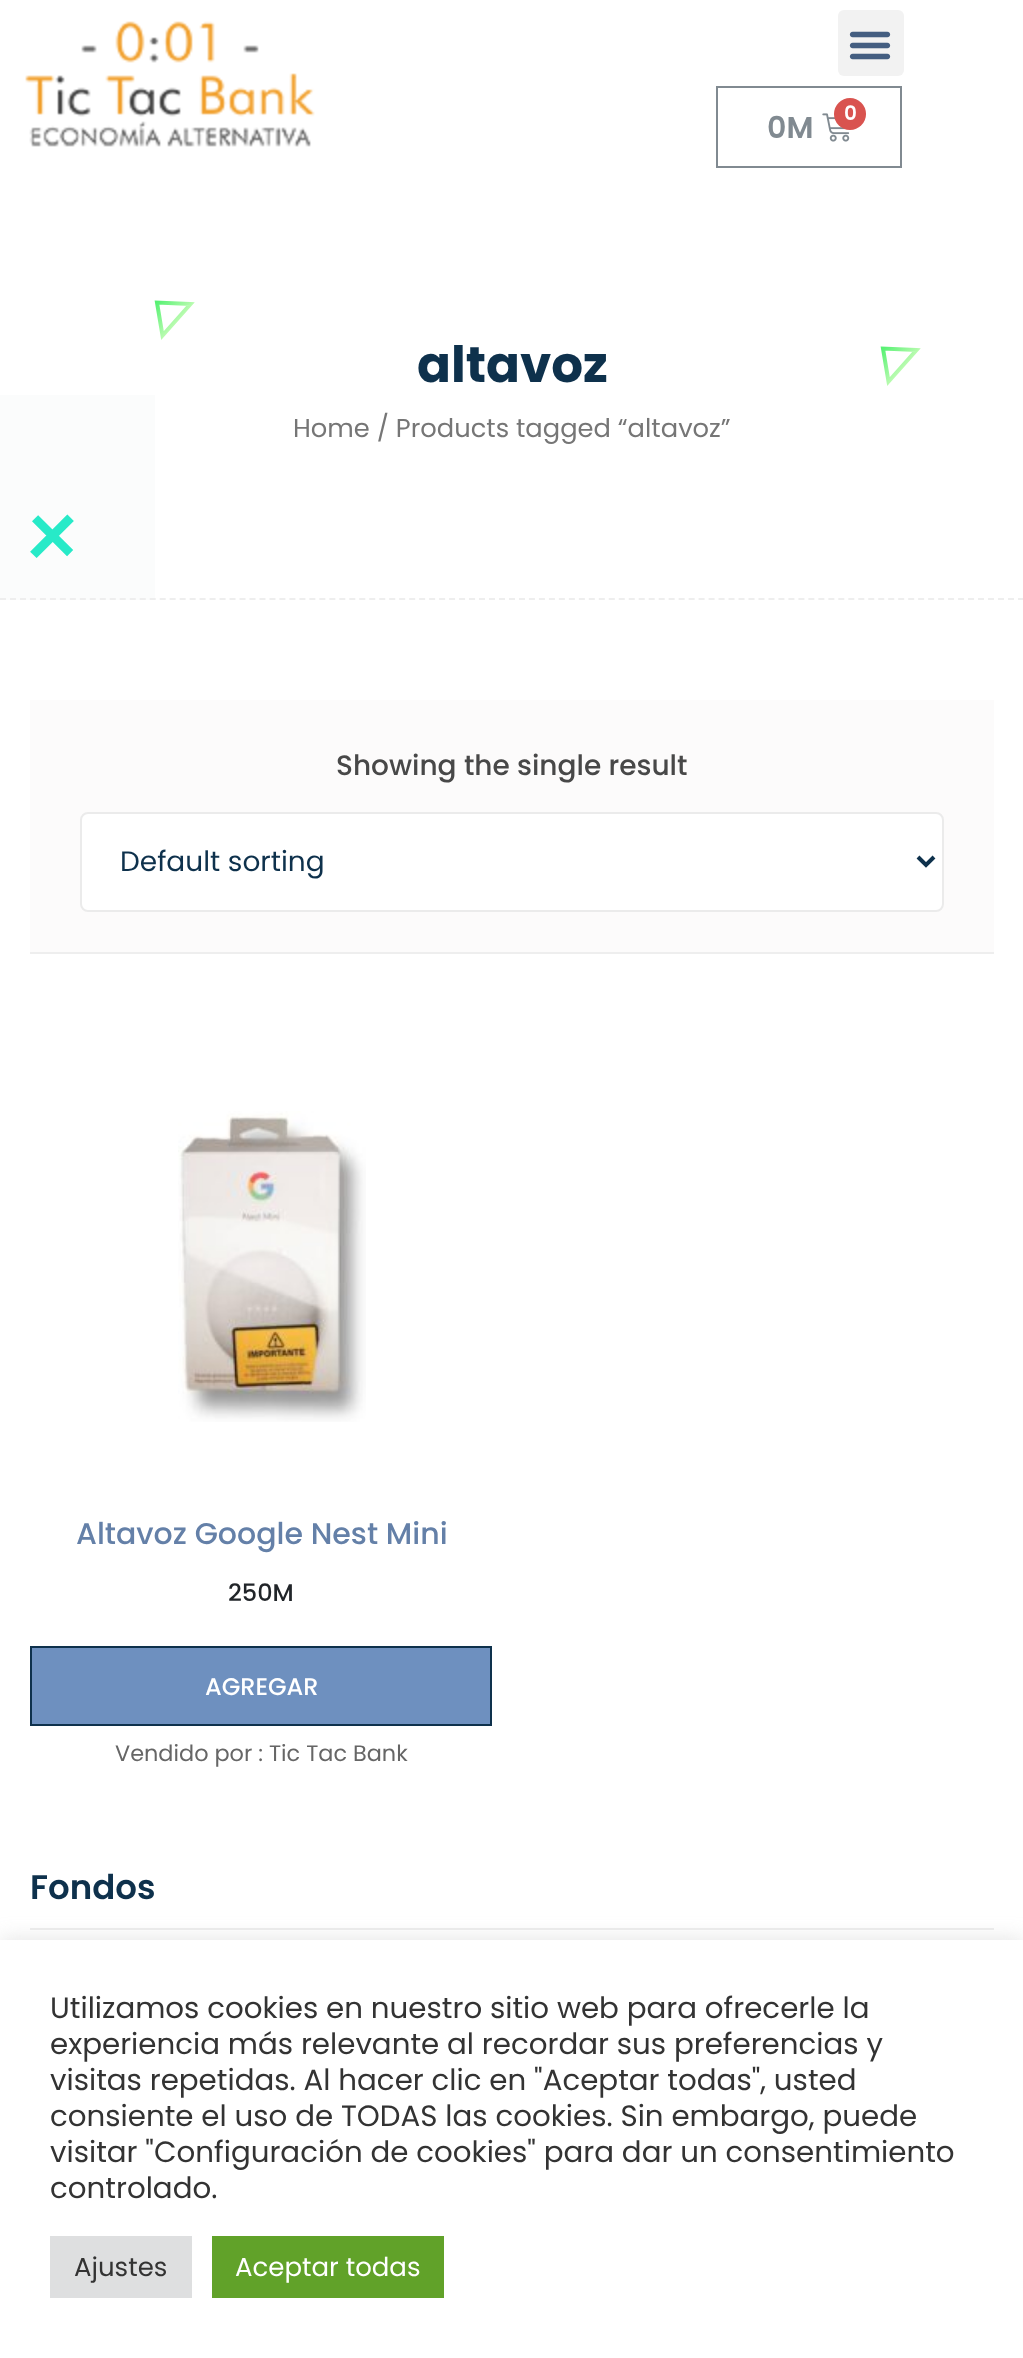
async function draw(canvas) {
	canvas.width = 1023;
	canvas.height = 2358;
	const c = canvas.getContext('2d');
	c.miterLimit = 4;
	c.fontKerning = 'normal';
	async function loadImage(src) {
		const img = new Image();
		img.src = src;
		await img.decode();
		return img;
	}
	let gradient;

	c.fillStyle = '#fff';
	c.fillRect(0, 0, 1023, 2358);
	c.drawImage(await loadImage('img1.png'), 25, 21, 290, 126);
	c.fillStyle = '#f2f2f2';
	c.beginPath();
	c.roundRect(838, 10, 66, 66, 6);
	c.fill();
	c.drawImage(await loadImage('img2.png'), 849, 31, 42, 29);
	c.strokeStyle = '#818a91';
	c.lineWidth = 2;
	c.strokeRect(717, 87, 184, 80);
	c.drawImage(await loadImage('img3.png'), 822, 113, 28, 29);
	c.fillStyle = '#d9534f';
	c.beginPath();
	c.arc(850, 114, 16, 0, 2 * Math.PI);
	c.fill();
	c.font = '600 20px Poppins';
	c.fillStyle = '#fff';
	c.fillText('0', 844, 120);
	c.font = '600 30px Poppins';
	c.fillStyle = '#818a91';
	c.fillText('0M', 767, 138);
	c.fillStyle = '#fbfcfc';
	c.fillRect(0, 395, 155, 205);
	c.beginPath();
	c.moveTo(0, 599);
	c.lineTo(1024, 599);
	c.strokeStyle = '#eee';
	c.setLineDash([6, 3.98]);
	c.stroke();
	c.beginPath();
	c.moveTo(190.5, 304);
	c.lineTo(157, 302.5);
	c.lineTo(162.5, 335.5);
	c.closePath();
	gradient = c.createLinearGradient(157, 302, 186, 328);
	gradient.addColorStop(0, '#57f173');
	gradient.addColorStop(1, '#ddffc6');
	c.strokeStyle = gradient;
	c.lineWidth = 4;
	c.setLineDash([]);
	c.stroke();
	c.font = 'bold 50px Poppins';
	c.fillStyle = '#0e314c';
	c.fillText('altavoz', 417, 382);
	c.font = '25.75px Poppins';
	c.fillStyle = '#767676';
	c.fillText('Home / Products tagged “altavoz”', 293, 437);
	c.beginPath();
	c.moveTo(916.5, 350);
	c.lineTo(883, 348.5);
	c.lineTo(888.5, 381.5);
	c.closePath();
	gradient = c.createLinearGradient(883, 348, 912, 374);
	gradient.addColorStop(0, '#57f173');
	gradient.addColorStop(1, '#ddffc6');
	c.strokeStyle = gradient;
	c.stroke();
	c.drawImage(await loadImage('img4.png'), 30, 514, 44, 44);
	c.fillStyle = '#fcfbfb';
	c.fillRect(30, 700, 964, 252);
	c.fillStyle = '#eee';
	c.fillRect(30, 952, 964, 2);
	c.font = '500 28px Poppins';
	c.fillStyle = '#484848';
	c.fillText('Showing the single result', 336, 775);
	c.fillStyle = '#fff';
	c.beginPath();
	c.roundRect(81, 813, 862, 98, 7);
	c.fill();
	c.strokeStyle = '#ebebeb';
	c.lineWidth = 2;
	c.stroke();
	c.beginPath();
	c.moveTo(918, 857);
	c.lineTo(926, 865);
	c.lineTo(934, 857);
	c.strokeStyle = '#0e314c';
	c.lineWidth = 4;
	c.stroke();
	c.font = '28px Poppins';
	c.fillStyle = '#0e314c';
	c.fillText('Default sorting', 120, 871);
	c.drawImage(await loadImage('img5.png'), 178, 1111, 188, 311);
	c.font = '500 30px Poppins';
	c.fillStyle = '#6480a8';
	c.fillText('Altavoz Google Nest Mini', 76, 1544);
	c.font = '500 24px Poppins';
	c.fillStyle = '#212529';
	c.fillText('250M', 228, 1601);
	c.fillStyle = '#6e90bf';
	c.beginPath();
	c.rect(31, 1647, 460, 78);
	c.fill();
	c.lineWidth = 2;
	c.stroke();
	c.fillStyle = '#fff';
	c.fillText('AGREGAR', 205, 1695);
	c.font = '22.4px Poppins';
	c.fillStyle = '#666';
	c.fillText('Vendido por : Tic Tac Bank', 115, 1761);
	c.fillStyle = '#eee';
	c.fillRect(30, 1928, 964, 2);
	c.font = '600 34px Poppins';
	c.fillStyle = '#0e314c';
	c.fillText('Fondos', 30, 1899);
	c.fillStyle = '#acabab4d';
	c.filter = 'blur(10px)';
	c.beginPath();
	c.rect(0, 1938, 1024, 418);
	c.fill();
	c.filter = 'none';
	c.fillStyle = '#fff';
	c.fillRect(0, 1940, 1023, 418);
	c.font = '29.3px Poppins';
	c.fillStyle = '#333';
	for (const [text, x, y] of [
		['Utilizamos cookies en nuestro sitio web para ofrecerle la', 50, 2018],
		['experiencia más relevante al recordar sus preferencias y', 50, 2054],
		['visitas repetidas. Al hacer clic en "Aceptar todas", usted', 50, 2090],
		['consiente el uso de TODAS las cookies. Sin embargo, puede', 50, 2126],
		['visitar "Configuración de cookies" para dar un consentimiento', 50, 2162],
		['controlado.', 50, 2198],
	]) {
		c.fillText(text, x, y);
	}
	c.fillStyle = '#dedfe0';
	c.fillRect(50, 2236, 142, 62);
	c.font = '26px Poppins';
	c.fillStyle = '#333';
	c.fillText('Ajustes', 74, 2276);
	c.fillStyle = '#61a229';
	c.fillRect(212, 2236, 232, 62);
	c.fillStyle = '#fff';
	c.fillText('Aceptar todas', 235, 2276);
}

draw(document.querySelector('canvas'));
